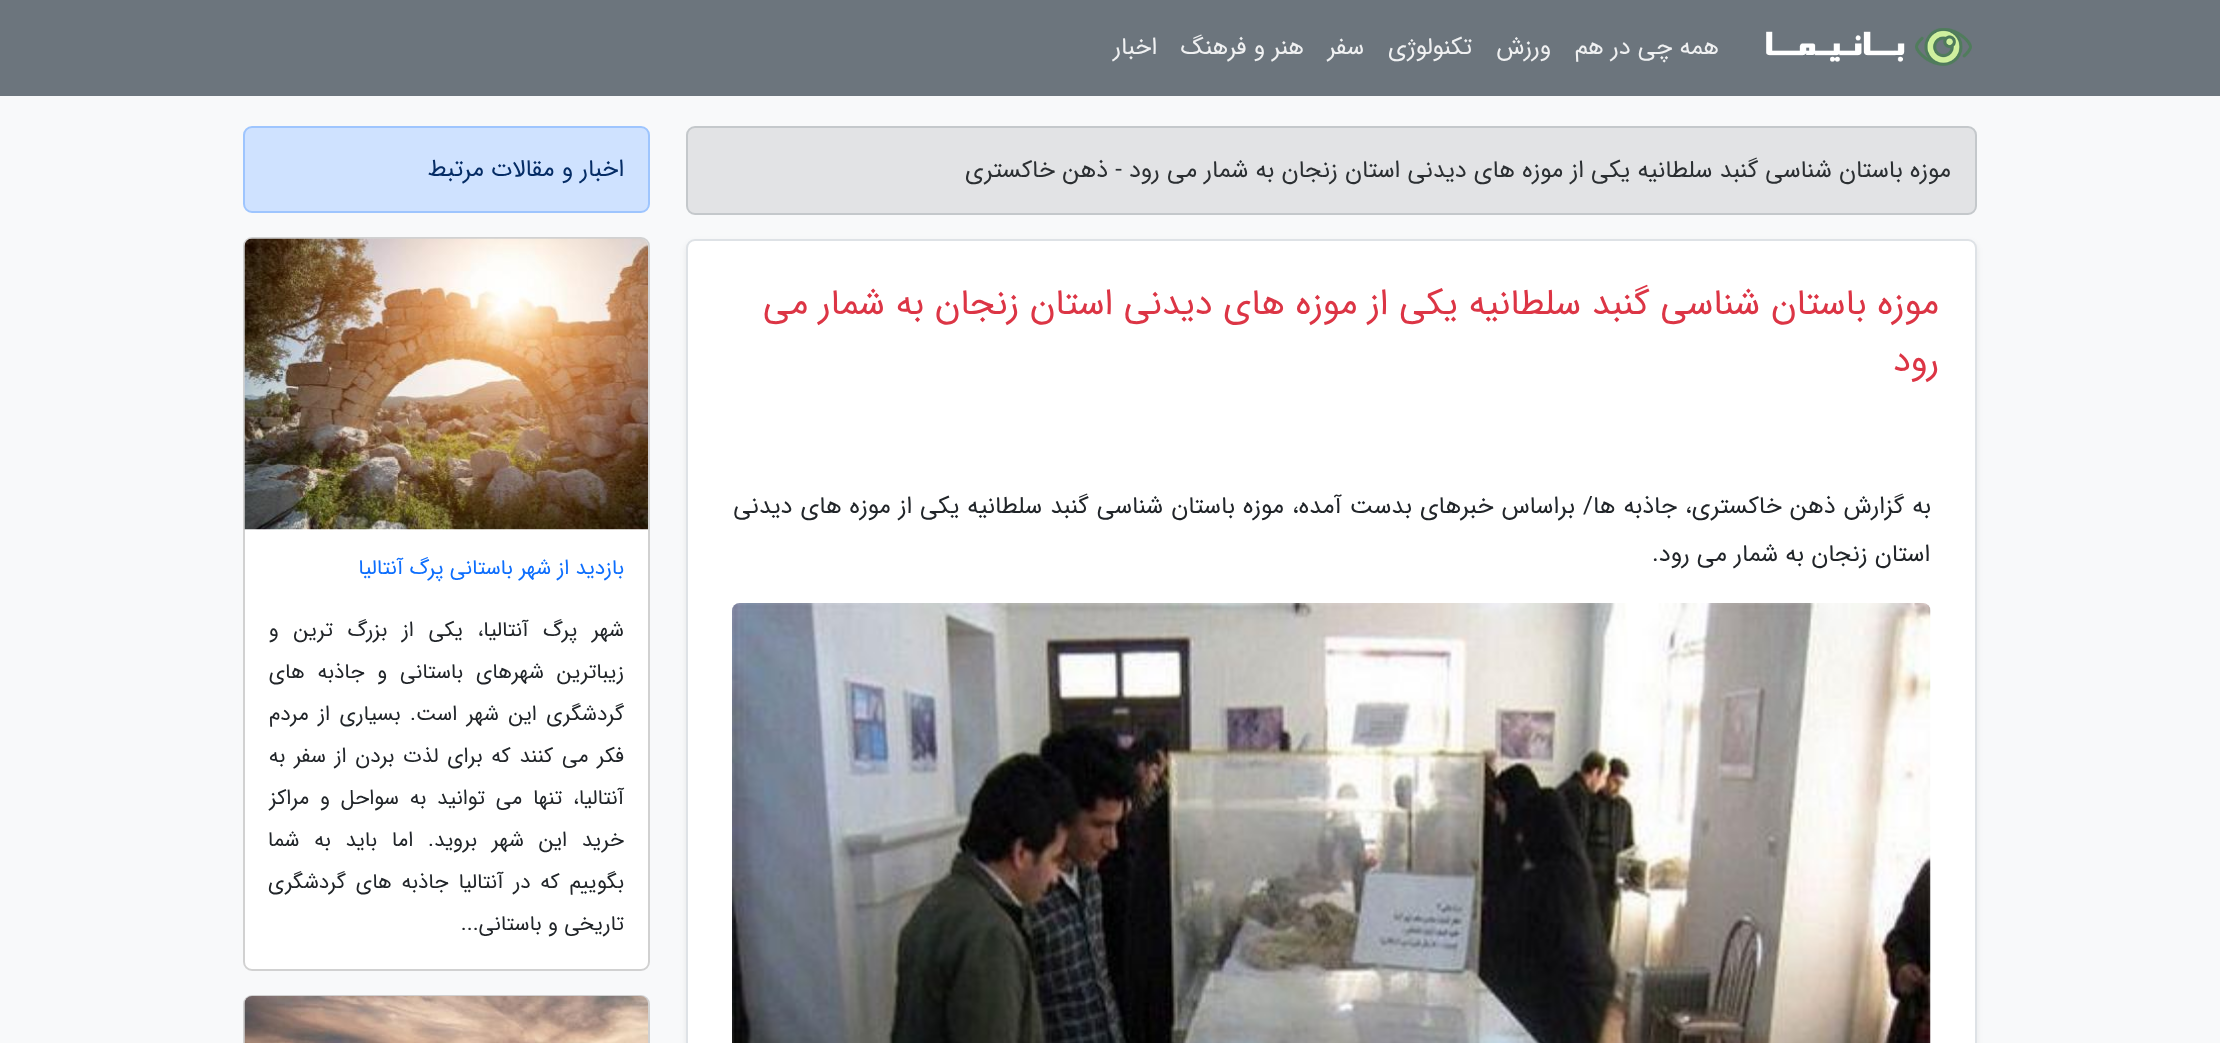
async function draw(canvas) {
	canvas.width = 2220;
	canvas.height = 1043;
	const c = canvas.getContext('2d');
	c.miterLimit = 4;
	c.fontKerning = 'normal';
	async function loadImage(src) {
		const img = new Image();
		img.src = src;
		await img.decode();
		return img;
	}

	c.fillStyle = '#f8f9fa';
	c.fillRect(0, 0, 2220, 1043);
	c.fillStyle = '#6c757d';
	c.fillRect(0, 0, 2220, 96);
	c.drawImage(await loadImage('img1.png'), 1766, 28, 206, 38);
	c.direction = 'rtl';
	c.font = '24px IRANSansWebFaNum';
	c.fillStyle = '#f0f1f2';
	for (const [text, x, y] of [
		['همه چی در هم', 1719, 54],
		['ورزش', 1551, 54],
		['تکنولوژی', 1472, 54],
		['سفر', 1364, 54],
		['هنر و فرهنگ', 1304, 54],
		['اخبار', 1157, 54],
	]) {
		c.fillText(text, x, y);
	}
	c.fillStyle = '#e2e3e5';
	c.beginPath();
	c.roundRect(687, 127, 1289, 87, 8);
	c.fill();
	c.strokeStyle = '#c4c8cb';
	c.lineWidth = 2;
	c.stroke();
	c.fillStyle = '#2b2f32';
	c.fillText('موزه باستان شناسی گنبد سلطانیه یکی از موزه های دیدنی استان زنجان به شمار می رود - ذهن خاکستری', 1951, 177);
	c.fillStyle = '#00000012';
	c.filter = 'blur(3px)';
	c.beginPath();
	c.roundRect(686, 242, 1291, 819, 9);
	c.fill();
	c.filter = 'none';
	c.fillStyle = '#fff';
	c.beginPath();
	c.roundRect(687, 240, 1289, 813, 8);
	c.fill();
	c.strokeStyle = '#dee2e6';
	c.stroke();
	c.font = '36px IRANSansWebFaNum';
	c.fillStyle = '#dc3545';
	c.fillText('موزه باستان شناسی گنبد سلطانیه یکی از موزه های دیدنی استان زنجان به شمار می', 1939, 314);
	c.fillText('رود', 1939, 371);
	c.wordSpacing = '0.8px';
	c.font = '24px IRANSansWebFaNum';
	c.fillStyle = '#212529';
	c.fillText('به گزارش ذهن خاکستری، جاذبه ها/ براساس خبرهای بدست آمده، موزه باستان شناسی گنبد سلطانیه یکی از موزه های دیدنی', 1931, 513);
	c.wordSpacing = '0px';
	c.fillText('استان زنجان به شمار می رود.', 1930, 561);
	c.drawImage(await loadImage('img2.png'), 732, 603, 1199, 440);
	c.fillStyle = '#cfe2ff';
	c.beginPath();
	c.roundRect(244, 127, 405, 85, 8);
	c.fill();
	c.strokeStyle = '#9ec5fe';
	c.stroke();
	c.fillStyle = '#052c65';
	c.fillText('اخبار و مقالات مرتبط', 624, 176);
	c.fillStyle = '#fff';
	c.beginPath();
	c.roundRect(243, 237, 407, 734, 9);
	c.fill();
	c.beginPath();
	c.roundRect(244, 238, 405, 732, 8);
	c.strokeStyle = '#0000002e';
	c.stroke();
	c.drawImage(await loadImage('img3.png'), 244, 238, 404, 292);
	c.font = '21px IRANSansWebFaNum';
	c.fillStyle = '#0d6efd';
	c.fillText('بازدید از شهر باستانی پرگ آنتالیا', 624, 574);
	c.wordSpacing = '8.5px';
	c.fillStyle = '#212529';
	c.fillText('شهر پرگ آنتالیا، یکی از بزرگ ترین و', 624, 636);
	c.wordSpacing = '6.5px';
	c.fillText('زیباترین شهرهای باستانی و جاذبه های', 624, 678);
	c.wordSpacing = '3.25px';
	c.fillText('گردشگری این شهر است. بسیاری از مردم', 624, 720);
	c.wordSpacing = '2.5px';
	c.fillText('فکر می کنند که برای لذت بردن از سفر به', 624, 762);
	c.wordSpacing = '4.5px';
	c.fillText('آنتالیا، تنها می توانید به سواحل و مراکز', 624, 804);
	c.wordSpacing = '8.5px';
	c.fillText('خرید این شهر بروید. اما باید به شما', 624, 846);
	c.wordSpacing = '3.5px';
	c.fillText('بگوییم که در آنتالیا جاذبه های گردشگری', 624, 888);
	c.wordSpacing = '0px';
	c.fillText('تاریخی و باستانی...', 624, 930);
	c.fillStyle = '#fff';
	c.beginPath();
	c.roundRect(243, 995, 407, 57, 9);
	c.fill();
	c.beginPath();
	c.roundRect(244, 996, 405, 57, 8);
	c.stroke();
	c.drawImage(await loadImage('img4.png'), 244, 996, 404, 47);
}

draw(document.querySelector('canvas'));
